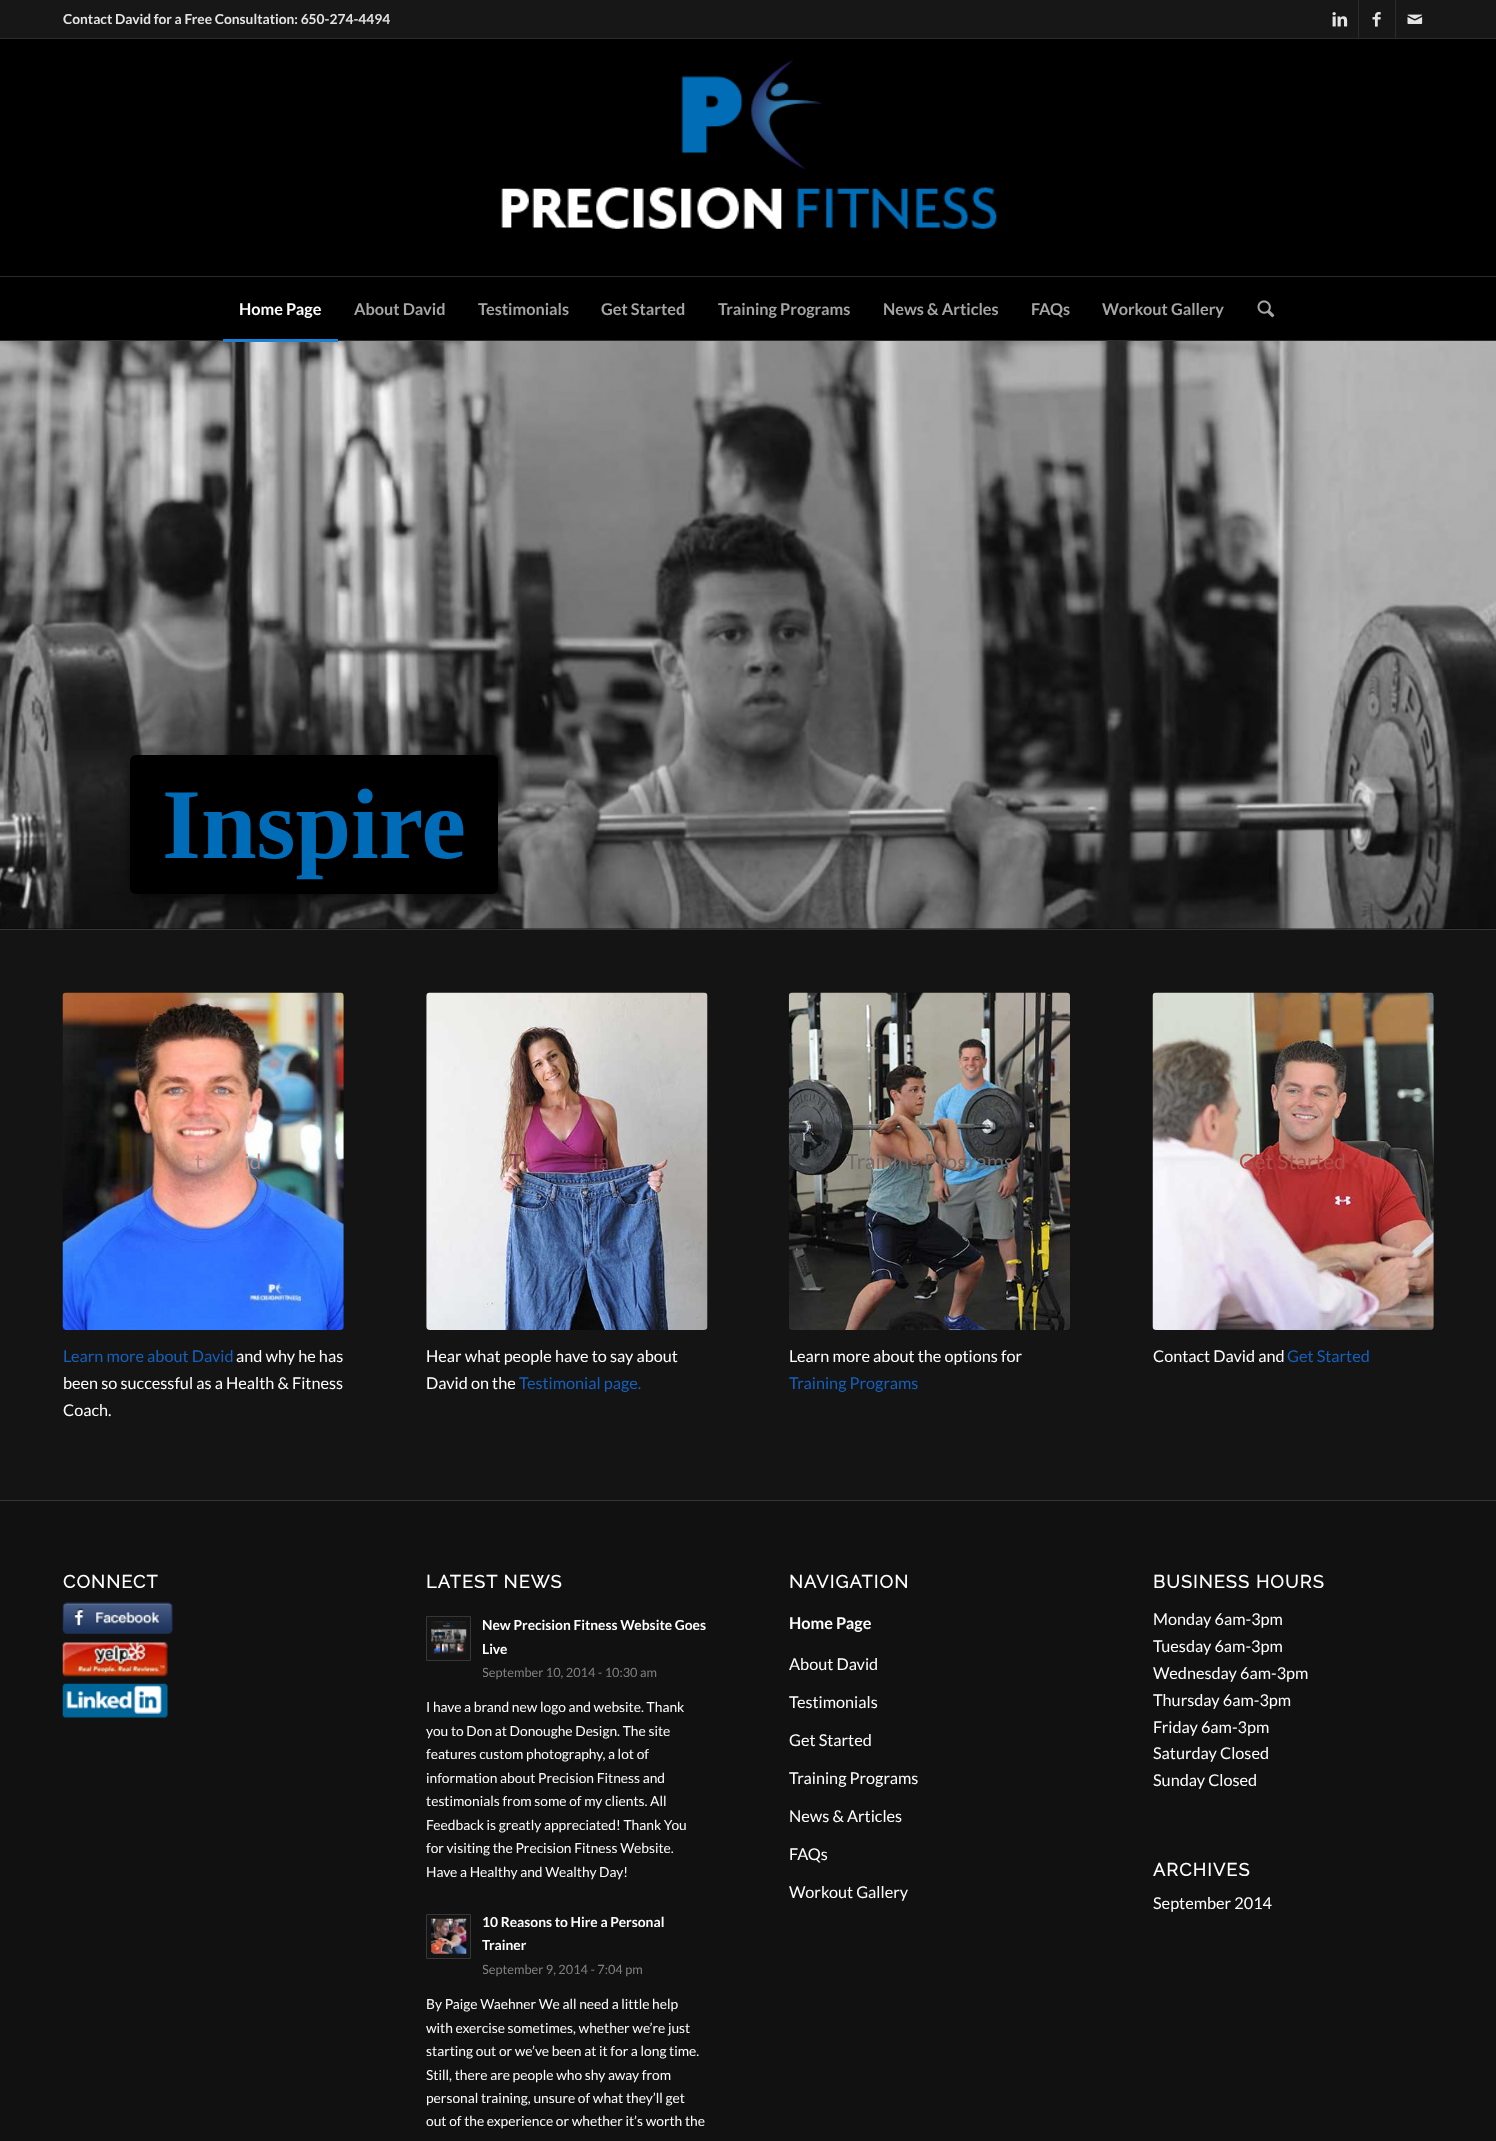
async function draw(canvas) {
	canvas.width = 1496;
	canvas.height = 2141;
	const c = canvas.getContext('2d');
	c.miterLimit = 4;
	c.fontKerning = 'normal';
	async function loadImage(src) {
		const img = new Image();
		img.src = src;
		await img.decode();
		return img;
	}

	c.fillStyle = '#000';
	c.fillRect(0, 0, 1496, 2141);
	c.fillStyle = '#171717';
	c.fillRect(0, 0, 1496, 38);
	c.fillStyle = '#2b2b2b';
	c.fillRect(0, 38, 1496, 1);
	c.font = 'bold 13.75px Lato';
	c.fillStyle = '#e4e4e4';
	c.fillText('Contact David for a Free Consultation: 650-274-4494', 63, 24);
	c.fillStyle = '#2b2b2b';
	c.fillRect(1358, 0, 1, 38);
	c.drawImage(await loadImage('img1.png'), 1332, 12, 16, 15);
	c.fillRect(1395, 0, 1, 38);
	c.drawImage(await loadImage('img2.png'), 1372, 12, 9, 15);
	c.drawImage(await loadImage('img3.png'), 1407, 14, 16, 10);
	c.fillRect(0, 340, 1496, 1);
	c.drawImage(await loadImage('img4.png'), 501, 60, 496, 169);
	c.fillRect(0, 276, 1496, 1);
	c.font = 'bold 16.25px Lato';
	c.fillStyle = '#fff';
	c.fillText('Home Page', 239, 315);
	c.drawImage(await loadImage('img6.png'), 0, 341, 1496, 588);
	c.fillStyle = '#1a80d4';
	c.fillRect(223, 339, 115, 3);
	c.fillStyle = '#a5a5a5';
	for (const [text, x, y] of [
		['About David', 354, 315],
		['Testimonials', 478, 315],
		['Get Started', 601, 315],
		['Training Programs', 718, 315],
		['News & Articles', 883, 315],
		['FAQs', 1031, 315],
		['Workout Gallery', 1102, 315],
	]) {
		c.fillText(text, x, y);
	}
	c.drawImage(await loadImage('img5.png'), 1257, 300, 18, 18);
	c.fillStyle = '#000';
	c.filter = 'blur(9.5px)';
	c.beginPath();
	c.rect(136, 766, 355, 127);
	c.fill();
	c.filter = 'none';
	c.beginPath();
	c.roundRect(130, 755, 368, 139, 6);
	c.fill();
	c.font = 'bold 100px Liberation Serif';
	c.fillStyle = '#006cb7';
	c.fillText('Inspire', 162, 858);
	c.fillStyle = '#141414';
	c.fillRect(0, 930, 1496, 570);
	c.fillStyle = '#363636';
	c.fillRect(0, 929, 1496, 1);
	c.drawImage(await loadImage('img7.png'), 62, 992, 282, 338);
	c.font = '21px Lato';
	c.fillStyle = '#b78b81';
	c.fillText('t', 195, 1169);
	c.fillText('id', 244, 1169);
	c.font = '16.25px Lato';
	c.fillStyle = '#1560bd';
	c.fillText('Learn more about David', 63, 1362);
	c.fillStyle = '#fff';
	for (const [text, x, y] of [
		['and why he has', 236, 1362],
		['been so successful as a Health & Fitness', 63, 1389],
		['Coach.', 63, 1416],
	]) {
		c.fillText(text, x, y);
	}
	c.drawImage(await loadImage('img8.png'), 426, 992, 282, 338);
	c.font = '21px Lato';
	c.fillStyle = '#853c5a';
	c.fillText('T', 509, 1169);
	c.fillText('ia', 593, 1169);
	c.font = '16.25px Lato';
	c.fillStyle = '#fff';
	c.fillText('Hear what people have to say about', 426, 1362);
	c.fillText('David on the', 426, 1389);
	c.fillStyle = '#1560bd';
	c.fillText('Testimonial page.', 519, 1389);
	c.drawImage(await loadImage('img9.png'), 788, 992, 282, 338);
	c.font = '21px Lato';
	c.fillStyle = '#726b69';
	c.fillText('Training Programs', 846, 1169);
	c.font = '16.25px Lato';
	c.fillStyle = '#fff';
	c.fillText('Learn more about the options for', 789, 1362);
	c.fillStyle = '#1560bd';
	c.fillText('Training Programs', 789, 1389);
	c.drawImage(await loadImage('img10.png'), 1152, 992, 282, 338);
	c.font = '21px Lato';
	c.fillStyle = '#b3514d';
	c.fillText('Get Started', 1239, 1169);
	c.font = '16.25px Lato';
	c.fillStyle = '#fff';
	c.fillText('Contact David and', 1153, 1362);
	c.fillStyle = '#1560bd';
	c.fillText('Get Started', 1287, 1362);
	c.fillStyle = '#111';
	c.fillRect(0, 1501, 1496, 640);
	c.fillStyle = '#363636';
	c.fillRect(0, 1500, 1496, 1);
	c.letterSpacing = '1.25px';
	c.font = 'bold 17.9px Raleway';
	c.fillStyle = '#fff';
	c.fillText('CONNECT', 63, 1588);
	c.drawImage(await loadImage('img11.png'), 62, 1602, 111, 32);
	c.drawImage(await loadImage('img12.png'), 62, 1642, 106, 35);
	c.drawImage(await loadImage('img13.png'), 62, 1683, 106, 35);
	c.fillText('LATEST NEWS', 426, 1588);
	c.fillStyle = '#141414';
	c.beginPath();
	c.rect(426.5, 1616.5, 44, 44);
	c.fill();
	c.strokeStyle = '#363636';
	c.stroke();
	c.drawImage(await loadImage('img14.png'), 431, 1621, 36, 33);
	c.letterSpacing = '0px';
	c.font = 'bold 13.8px Lato';
	c.fillStyle = '#fff';
	c.fillText('New Precision Fitness Website Goes', 482, 1630);
	c.fillText('Live', 482, 1654);
	c.save();
	c.beginPath();
	c.rect(483, 1614, 225, 71);
	c.clip();
	c.font = '12.75px Lato';
	c.fillStyle = '#808080';
	c.fillText('September 10, 2014 - 10:30 am', 482, 1677);
	c.restore();
	c.font = '13.8px Lato';
	for (const [text, x, y] of [
		['I have a brand new logo and website. Thank', 426, 1712],
		['you to Don at Donoughe Design. The site', 426, 1736],
		['features custom photography, a lot of', 426, 1759],
		['information about Precision Fitness and', 426, 1783],
		['testimonials from some of my clients. All', 426, 1806],
		['Feedback is greatly appreciated! Thank You', 426, 1830],
		['for visiting the Precision Fitness Website.', 426, 1853],
		['Have a Healthy and Wealthy Day!', 426, 1877],
	]) {
		c.fillText(text, x, y);
	}
	c.fillStyle = '#141414';
	c.beginPath();
	c.rect(426.5, 1914.5, 44, 44);
	c.fill();
	c.stroke();
	c.drawImage(await loadImage('img15.png'), 431, 1918, 36, 36);
	c.font = 'bold 13.8px Lato';
	c.fillStyle = '#fff';
	c.fillText('10 Reasons to Hire a Personal', 482, 1927);
	c.fillText('Trainer', 482, 1950);
	c.save();
	c.beginPath();
	c.rect(483, 1911, 225, 70);
	c.clip();
	c.font = '12.75px Lato';
	c.fillStyle = '#808080';
	c.fillText('September 9, 2014 - 7:04 pm', 482, 1974);
	c.restore();
	c.font = '13.8px Lato';
	for (const [text, x, y] of [
		['By Paige Waehner We all need a little help', 426, 2009],
		['with exercise sometimes, whether we’re just', 426, 2033],
		['starting out or we’ve been at it for a long time.', 426, 2056],
		['Still, there are people who shy away from', 426, 2080],
		['personal training, unsure of what they’ll get', 426, 2103],
		['out of the experience or whether it’s worth the', 426, 2126],
	]) {
		c.fillText(text, x, y);
	}
	c.letterSpacing = '1.25px';
	c.font = 'bold 17.9px Raleway';
	c.fillText('NAVIGATION', 789, 1588);
	c.letterSpacing = '0px';
	c.font = 'bold 16.25px Lato';
	c.fillText('Home Page', 789, 1629);
	c.font = '16.25px Lato';
	for (const [text, x, y] of [
		['About David', 789, 1670],
		['Testimonials', 789, 1708],
		['Get Started', 789, 1746],
		['Training Programs', 789, 1784],
		['News & Articles', 789, 1822],
		['FAQs', 789, 1860],
		['Workout Gallery', 789, 1898],
	]) {
		c.fillText(text, x, y);
	}
	c.letterSpacing = '1.25px';
	c.font = 'bold 17.9px Raleway';
	c.fillText('BUSINESS HOURS', 1153, 1588);
	c.letterSpacing = '0px';
	c.font = '16.25px Lato';
	for (const [text, x, y] of [
		['Monday 6am-3pm', 1153, 1625],
		['Tuesday 6am-3pm', 1153, 1652],
		['Wednesday 6am-3pm', 1153, 1679],
		['Thursday 6am-3pm', 1153, 1706],
		['Friday 6am-3pm', 1153, 1733],
		['Saturday Closed', 1153, 1759],
		['Sunday Closed', 1153, 1786],
	]) {
		c.fillText(text, x, y);
	}
	c.letterSpacing = '1.25px';
	c.font = 'bold 17.9px Raleway';
	c.fillText('ARCHIVES', 1153, 1876);
	c.letterSpacing = '0px';
	c.font = '16.25px Lato';
	c.fillText('September 2014', 1153, 1909);
}

draw(document.querySelector('canvas'));
